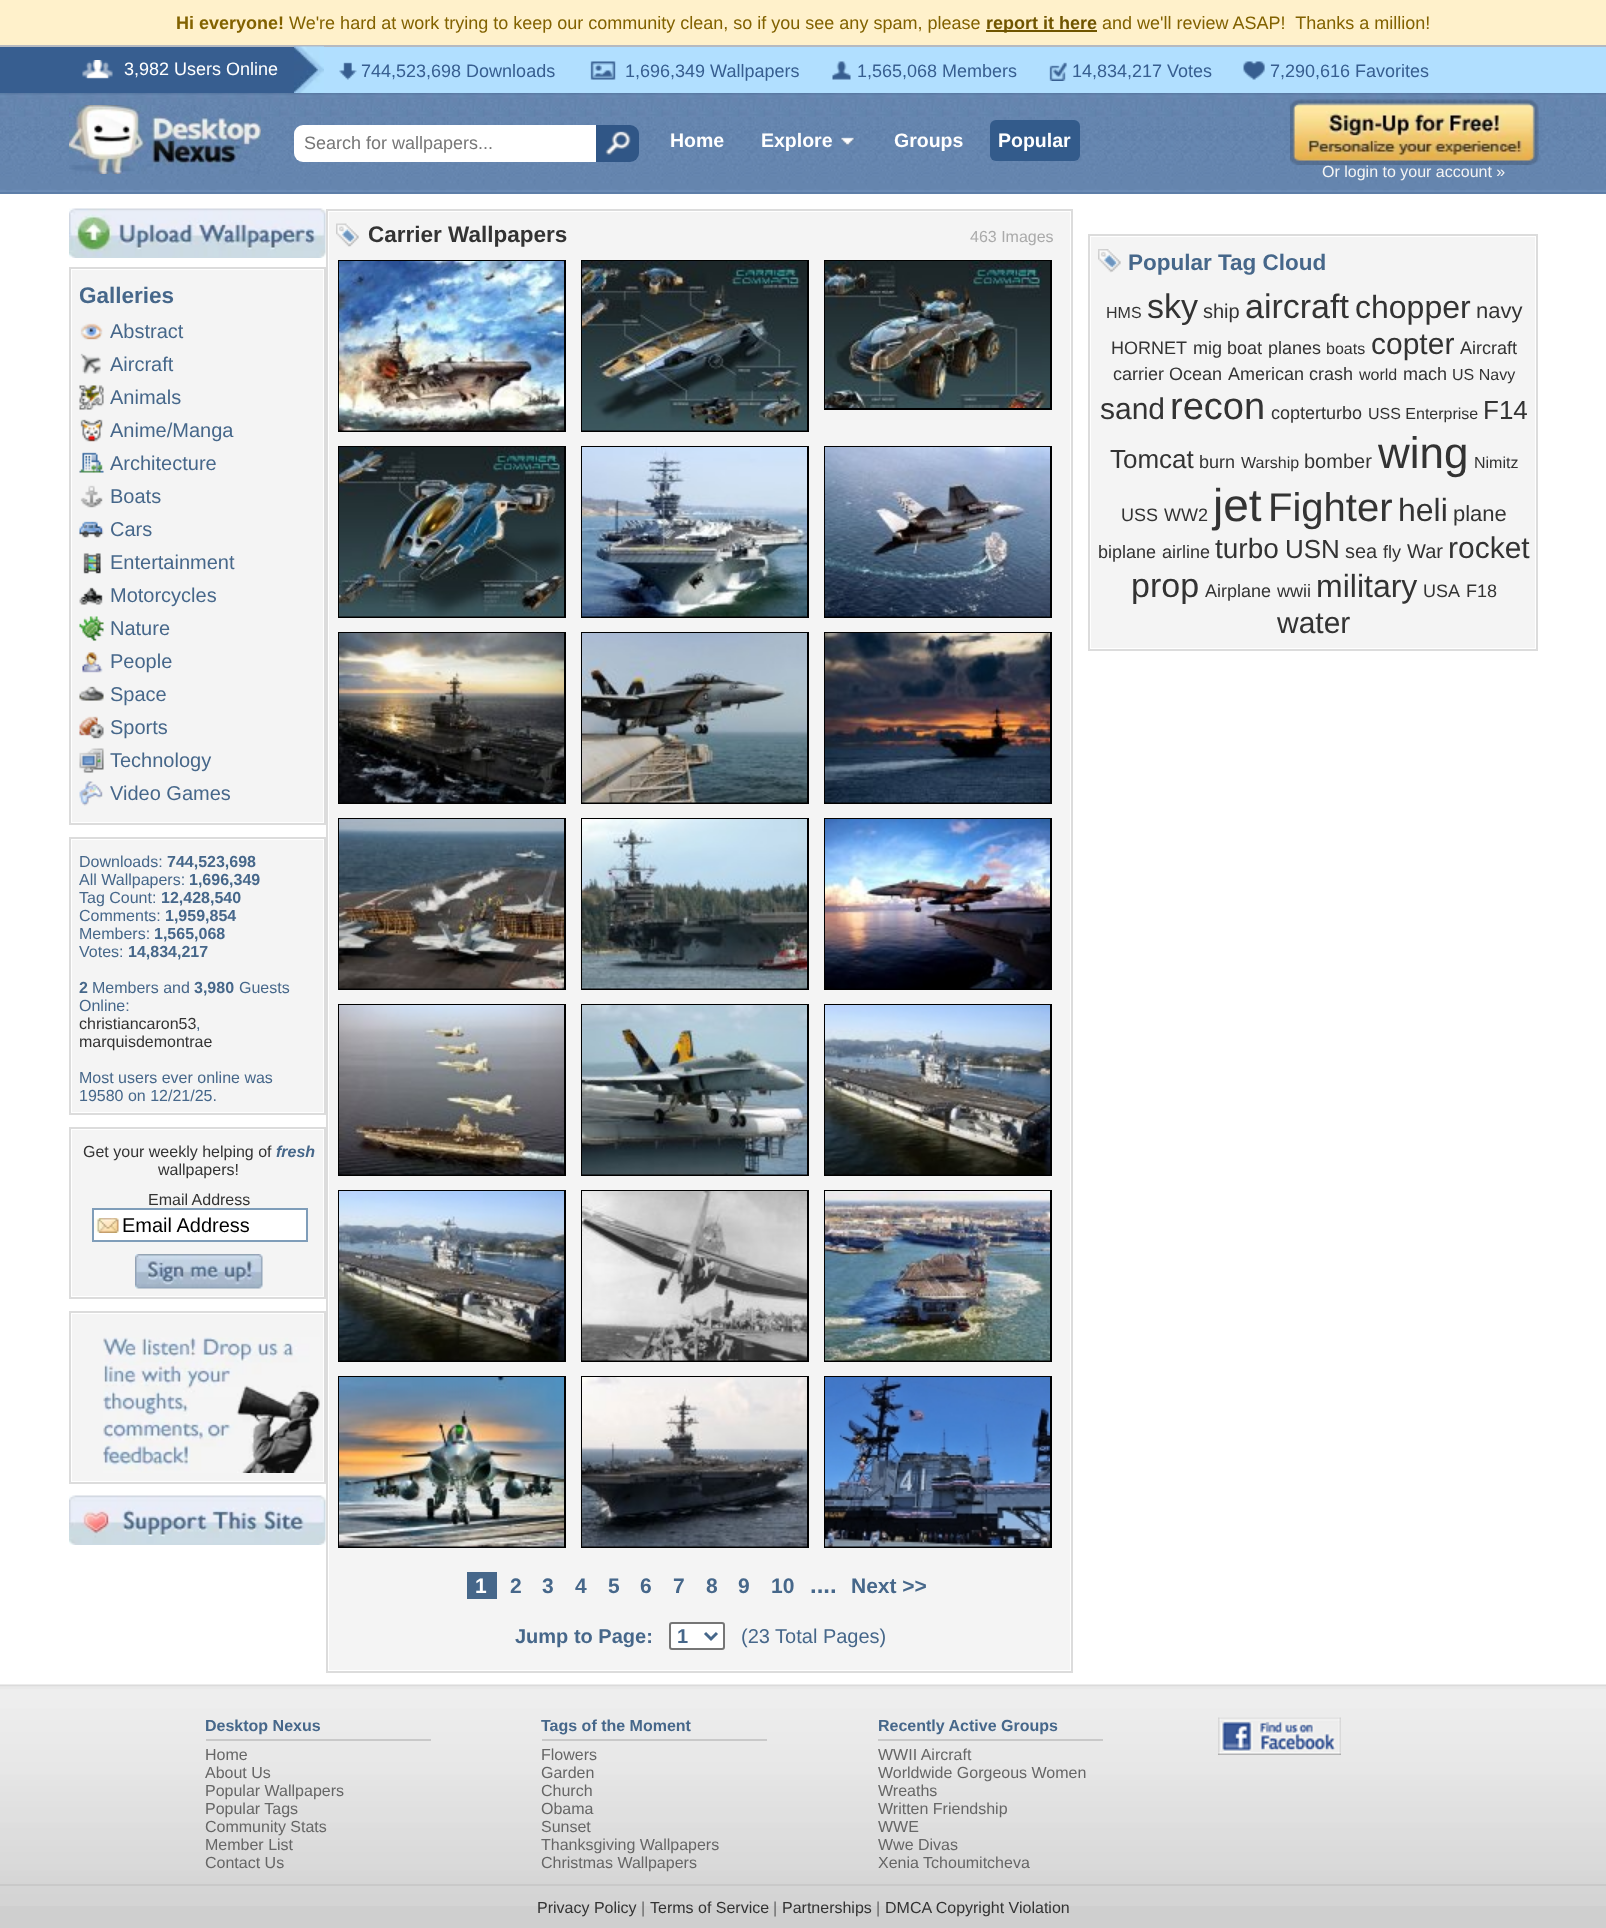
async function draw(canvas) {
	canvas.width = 1606;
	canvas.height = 1928;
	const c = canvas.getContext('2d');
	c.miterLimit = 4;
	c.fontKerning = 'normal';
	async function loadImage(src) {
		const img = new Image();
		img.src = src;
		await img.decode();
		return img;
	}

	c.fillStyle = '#fff';
	c.fillRect(0, 0, 1606, 1928);
	c.fillStyle = '#fff1cb';
	c.fillRect(0, 0, 1606, 45);
	c.font = 'bold 18px Liberation Sans';
	c.fillStyle = '#826200';
	c.fillText('Hi everyone!', 176, 29);
	c.font = '18px Liberation Sans';
	c.fillText('We\'re hard at work trying to keep our community clean, so if you see any spam, please', 289, 29);
	c.fillStyle = '#705500';
	c.fillRect(986, 30, 111, 2);
	c.font = 'bold 18px Liberation Sans';
	c.fillText('report it here', 986, 29);
	c.font = '18px Liberation Sans';
	c.fillStyle = '#826200';
	c.fillText('and we\'ll review ASAP!  Thanks a million!', 1102, 29);
	for (const [x, y, w, h, color] of [
		[324, 47, 1282, 46, '#b1dfff'],
		[0, 45, 1606, 2, '#b6bac0'],
		[0, 47, 294, 46, '#375e90'],
	]) {
		c.fillStyle = color;
		c.fillRect(x, y, w, h);
	}
	c.drawImage(await loadImage('img1.png'), 82, 60, 31, 19);
	c.fillStyle = '#fff';
	c.fillText('3,982 Users Online', 124, 75);
	c.drawImage(await loadImage('img2.png'), 294, 46, 30, 47);
	c.drawImage(await loadImage('img3.png'), 339, 62, 18, 18);
	c.fillStyle = '#375e90';
	c.fillText('744,523,698 Downloads', 361, 77);
	c.drawImage(await loadImage('img4.png'), 590, 61, 26, 19);
	c.fillText('1,696,349 Wallpapers', 625, 77);
	c.drawImage(await loadImage('img5.png'), 832, 61, 19, 19);
	c.fillText('1,565,068 Members', 857, 77);
	c.drawImage(await loadImage('img6.png'), 1049, 62, 18, 19);
	c.fillText('14,834,217 Votes', 1072, 77);
	c.drawImage(await loadImage('img7.png'), 1243, 61, 22, 19);
	c.fillText('7,290,616 Favorites', 1270, 77);
	c.fillStyle = '#6384ad';
	c.fillRect(0, 193, 1606, 1);
	c.drawImage(await loadImage('img8.png'), 0, 93, 1606, 101);
	c.drawImage(await loadImage('img9.png'), 69, 105, 192, 69);
	c.fillStyle = '#fff';
	c.beginPath();
	c.roundRect(294, 125, 326, 37, [9, 0, 0, 9]);
	c.fill();
	c.fillStyle = '#777';
	c.fillText('Search for wallpapers...', 304, 149);
	c.fillStyle = '#305686';
	c.beginPath();
	c.roundRect(596, 125, 43, 37, [0, 9, 9, 0]);
	c.fill();
	c.drawImage(await loadImage('img10.png'), 605, 131, 26, 24);
	c.font = 'bold 19.5px Liberation Sans';
	c.fillStyle = '#fff';
	c.fillText('Home', 670, 147);
	c.fillText('Explore', 761, 147);
	c.drawImage(await loadImage('img11.png'), 840, 137, 15, 9);
	c.fillText('Groups', 894, 147);
	c.fillStyle = '#335b8b';
	c.beginPath();
	c.roundRect(990, 120, 90, 41, 6);
	c.fill();
	c.fillStyle = '#fff';
	c.fillText('Popular', 998, 147);
	c.drawImage(await loadImage('img12.png'), 1290, 99, 249, 66);
	c.font = '16px Liberation Sans';
	c.fillStyle = '#f4f4f4';
	c.fillText('Or login to your account »', 1322, 177);
	c.drawImage(await loadImage('img13.png'), 69, 208, 257, 50);
	c.strokeStyle = '#dcdcdc';
	c.lineWidth = 2;
	c.strokeRect(70, 268, 255, 556);
	c.fillRect(72, 270, 251, 552);
	c.font = 'bold 22.5px Liberation Sans';
	c.fillStyle = '#46678a';
	c.fillText('Galleries', 79, 303);
	c.drawImage(await loadImage('img14.png'), 80, 323, 23, 17);
	c.font = '20px Liberation Sans';
	c.fillText('Abstract', 110, 338);
	c.drawImage(await loadImage('img15.png'), 80, 353, 21, 21);
	c.fillText('Aircraft', 110, 371);
	c.drawImage(await loadImage('img16.png'), 79, 385, 25, 25);
	c.fillText('Animals', 110, 404);
	c.drawImage(await loadImage('img17.png'), 80, 419, 23, 23);
	c.fillText('Anime/Manga', 110, 437);
	c.drawImage(await loadImage('img18.png'), 79, 452, 25, 21);
	c.fillText('Architecture', 110, 470);
	c.drawImage(await loadImage('img19.png'), 80, 485, 23, 23);
	c.fillText('Boats', 110, 503);
	c.drawImage(await loadImage('img20.png'), 79, 521, 25, 17);
	c.fillText('Cars', 110, 536);
	c.drawImage(await loadImage('img21.png'), 83, 553, 18, 21);
	c.fillText('Entertainment', 110, 569);
	c.drawImage(await loadImage('img22.png'), 79, 587, 24, 18);
	c.fillText('Motorcycles', 110, 602);
	c.drawImage(await loadImage('img23.png'), 79, 616, 25, 25);
	c.fillText('Nature', 110, 635);
	c.drawImage(await loadImage('img24.png'), 82, 652, 21, 21);
	c.fillText('People', 110, 668);
	c.drawImage(await loadImage('img25.png'), 79, 686, 25, 15);
	c.fillText('Space', 110, 701);
	c.drawImage(await loadImage('img26.png'), 79, 716, 25, 23);
	c.fillText('Sports', 110, 734);
	c.drawImage(await loadImage('img27.png'), 79, 748, 25, 25);
	c.fillText('Technology', 110, 767);
	c.drawImage(await loadImage('img28.png'), 79, 781, 24, 25);
	c.fillText('Video Games', 110, 800);
	c.strokeRect(70, 838, 255, 276);
	c.fillStyle = '#f4f4f4';
	c.fillRect(72, 840, 251, 272);
	c.font = '16px Liberation Sans';
	c.fillStyle = '#46678a';
	c.fillText('Downloads:', 79, 867);
	c.font = 'bold 16px Liberation Sans';
	c.fillText('744,523,698', 167, 867);
	c.font = '16px Liberation Sans';
	c.fillText('All Wallpapers:', 79, 885);
	c.font = 'bold 16px Liberation Sans';
	c.fillText('1,696,349', 189, 885);
	c.font = '16px Liberation Sans';
	c.fillText('Tag Count:', 79, 903);
	c.font = 'bold 16px Liberation Sans';
	c.fillText('12,428,540', 161, 903);
	c.font = '16px Liberation Sans';
	c.fillText('Comments:', 79, 921);
	c.font = 'bold 16px Liberation Sans';
	c.fillText('1,959,854', 165, 921);
	c.font = '16px Liberation Sans';
	c.fillText('Members:', 79, 939);
	c.font = 'bold 16px Liberation Sans';
	c.fillText('1,565,068', 154, 939);
	c.font = '16px Liberation Sans';
	c.fillText('Votes:', 79, 957);
	c.font = 'bold 16px Liberation Sans';
	c.fillText('14,834,217', 128, 957);
	c.fillText('2', 79, 993);
	c.font = '16px Liberation Sans';
	c.fillText('Members and', 92, 993);
	c.font = 'bold 16px Liberation Sans';
	c.fillText('3,980', 194, 993);
	c.font = '16px Liberation Sans';
	c.fillText('Guests', 239, 993);
	c.fillText('Online:', 79, 1011);
	c.fillStyle = '#333';
	c.fillText('christiancaron53', 79, 1029);
	c.fillStyle = '#46678a';
	c.fillText(',', 196, 1029);
	c.fillStyle = '#333';
	c.fillText('marquisdemontrae', 79, 1047);
	c.fillStyle = '#46678a';
	c.fillText('Most users ever online was', 79, 1083);
	c.fillText('19580 on 12/21/25.', 79, 1101);
	c.strokeRect(70, 1128, 255, 170);
	c.fillStyle = '#f4f4f4';
	c.fillRect(72, 1130, 251, 166);
	c.fillStyle = '#333';
	c.fillText('Get your weekly helping of', 83, 1157);
	c.font = 'italic bold 16px Liberation Sans';
	c.fillStyle = '#46678a';
	c.fillText('fresh', 276, 1157);
	c.font = '16px Liberation Sans';
	c.fillStyle = '#333';
	c.fillText('wallpapers!', 158, 1175);
	c.fillText('Email Address', 148, 1205);
	c.fillStyle = '#fff';
	c.fillRect(94, 1210, 212, 30);
	c.drawImage(await loadImage('img29.png'), 94, 1218, 25, 15);
	c.strokeStyle = '#7f9db9';
	c.strokeRect(93, 1209, 214, 32);
	c.font = '20px Liberation Sans';
	c.fillStyle = '#000';
	c.fillText('Email Address', 122, 1232);
	c.drawImage(await loadImage('img30.png'), 135, 1254, 128, 35);
	c.strokeStyle = '#dcdcdc';
	c.strokeRect(70, 1312, 255, 171);
	c.fillStyle = '#f4f4f4';
	c.fillRect(72, 1314, 251, 167);
	c.drawImage(await loadImage('img31.png'), 103, 1337, 217, 136);
	c.drawImage(await loadImage('img32.png'), 69, 1495, 257, 50);
	c.strokeRect(327, 210, 745, 1462);
	c.fillRect(329, 212, 741, 1458);
	c.drawImage(await loadImage('img33.png'), 336, 223, 23, 24);
	c.font = 'bold 22.5px Liberation Sans';
	c.fillStyle = '#333';
	c.fillText('Carrier Wallpapers', 368, 242);
	c.font = '16px Liberation Sans';
	c.fillStyle = '#aaa';
	c.fillText('463 Images', 970, 242);
	c.strokeStyle = '#000';
	c.strokeRect(339, 261, 226, 170);
	c.drawImage(await loadImage('img34.png'), 339, 261, 225, 170);
	c.strokeRect(582, 261, 226, 170);
	c.drawImage(await loadImage('img35.png'), 582, 261, 225, 170);
	c.strokeRect(825, 261, 226, 148);
	c.drawImage(await loadImage('img36.png'), 825, 261, 225, 147);
	c.strokeRect(339, 447, 226, 170);
	c.drawImage(await loadImage('img37.png'), 339, 447, 225, 170);
	c.strokeRect(582, 447, 226, 170);
	c.drawImage(await loadImage('img38.png'), 582, 447, 225, 170);
	c.strokeRect(825, 447, 226, 170);
	c.drawImage(await loadImage('img39.png'), 825, 447, 225, 170);
	c.strokeRect(339, 633, 226, 170);
	c.drawImage(await loadImage('img40.png'), 339, 633, 225, 170);
	c.strokeRect(582, 633, 226, 170);
	c.drawImage(await loadImage('img41.png'), 582, 633, 225, 170);
	c.strokeRect(825, 633, 226, 170);
	c.drawImage(await loadImage('img42.png'), 825, 633, 225, 170);
	c.strokeRect(339, 819, 226, 170);
	c.drawImage(await loadImage('img43.png'), 339, 819, 225, 170);
	c.strokeRect(582, 819, 226, 170);
	c.drawImage(await loadImage('img44.png'), 582, 819, 225, 170);
	c.strokeRect(825, 819, 226, 170);
	c.drawImage(await loadImage('img45.png'), 825, 819, 225, 170);
	c.strokeRect(339, 1005, 226, 170);
	c.drawImage(await loadImage('img46.png'), 339, 1005, 225, 170);
	c.strokeRect(582, 1005, 226, 170);
	c.drawImage(await loadImage('img47.png'), 582, 1005, 225, 170);
	c.strokeRect(825, 1005, 226, 170);
	c.drawImage(await loadImage('img48.png'), 825, 1005, 225, 170);
	c.strokeRect(339, 1191, 226, 170);
	c.drawImage(await loadImage('img49.png'), 339, 1191, 225, 170);
	c.strokeRect(582, 1191, 226, 170);
	c.drawImage(await loadImage('img50.png'), 582, 1191, 225, 170);
	c.strokeRect(825, 1191, 226, 170);
	c.drawImage(await loadImage('img51.png'), 825, 1191, 225, 170);
	c.strokeRect(339, 1377, 226, 170);
	c.drawImage(await loadImage('img52.png'), 339, 1377, 225, 170);
	c.strokeRect(582, 1377, 226, 170);
	c.drawImage(await loadImage('img53.png'), 582, 1377, 225, 170);
	c.strokeRect(825, 1377, 226, 170);
	c.drawImage(await loadImage('img54.png'), 825, 1377, 225, 170);
	c.fillStyle = '#46678a';
	c.fillRect(467, 1572, 30, 27);
	c.font = 'bold 21px Liberation Sans';
	c.fillStyle = '#fff';
	c.fillText('1', 475, 1593);
	c.fillStyle = '#46678a';
	for (const [text, x, y] of [
		['2', 510, 1593],
		['3', 542, 1593],
		['4', 575, 1593],
		['5', 608, 1593],
		['6', 640, 1593],
		['7', 673, 1593],
		['8', 706, 1593],
		['9', 738, 1593],
		['10', 771, 1593],
	]) {
		c.fillText(text, x, y);
	}
	c.font = 'bold 24px Liberation Sans';
	c.fillText('....', 810, 1593);
	c.font = 'bold 21px Liberation Sans';
	c.fillText('Next >>', 851, 1593);
	c.font = 'bold 20px Liberation Sans';
	c.fillText('Jump to Page:', 515, 1643);
	c.fillStyle = '#fff';
	c.beginPath();
	c.roundRect(670, 1623, 54, 26, 2);
	c.fill();
	c.strokeStyle = '#767676';
	c.stroke();
	c.beginPath();
	c.moveTo(705, 1633);
	c.lineTo(711, 1639);
	c.lineTo(717, 1633);
	c.strokeStyle = '#46678a';
	c.lineWidth = 3;
	c.stroke();
	c.fillStyle = '#46678a';
	c.fillText('1', 677, 1643);
	c.font = '20px Liberation Sans';
	c.fillText('(23 Total Pages)', 741, 1643);
	c.strokeStyle = '#dcdcdc';
	c.lineWidth = 2;
	c.strokeRect(1089, 235, 448, 415);
	c.fillStyle = '#f4f4f4';
	c.fillRect(1091, 237, 444, 411);
	c.drawImage(await loadImage('img55.png'), 1098, 249, 23, 24);
	c.font = 'bold 22.5px Liberation Sans';
	c.fillStyle = '#46678a';
	c.fillText('Popular Tag Cloud', 1128, 270);
	c.font = '16px Liberation Sans';
	c.fillStyle = '#333';
	c.fillText('HMS', 1106, 318);
	c.font = '34px Liberation Sans';
	c.fillText('sky', 1147, 318);
	c.font = '20px Liberation Sans';
	c.fillText('ship', 1203, 318);
	c.font = '34px Liberation Sans';
	c.fillText('aircraft', 1245, 318);
	c.font = '32px Liberation Sans';
	c.fillText('chopper', 1355, 318);
	c.font = '22px Liberation Sans';
	c.fillText('navy', 1476, 318);
	c.font = '18px Liberation Sans';
	for (const [text, x, y] of [
		['HORNET', 1111, 354],
		['mig', 1193, 354],
		['boat', 1227, 354],
		['planes', 1268, 354],
	]) {
		c.fillText(text, x, y);
	}
	c.font = '16px Liberation Sans';
	c.fillText('boats', 1326, 354);
	c.font = '30px Liberation Sans';
	c.fillText('copter', 1371, 354);
	c.font = '18px Liberation Sans';
	for (const [text, x, y] of [
		['Aircraft', 1460, 354],
		['carrier', 1113, 380],
		['Ocean', 1169, 380],
		['American', 1228, 380],
		['crash', 1309, 380],
	]) {
		c.fillText(text, x, y);
	}
	c.font = '16px Liberation Sans';
	c.fillText('world', 1359, 380);
	c.font = '18px Liberation Sans';
	c.fillText('mach', 1403, 380);
	c.font = '16px Liberation Sans';
	c.fillText('US Navy', 1452, 380);
	c.font = '30px Liberation Sans';
	c.fillText('sand', 1100, 419);
	c.font = '38px Liberation Sans';
	c.fillText('recon', 1170, 419);
	c.font = '18px Liberation Sans';
	c.fillText('copterturbo', 1271, 419);
	c.font = '16px Liberation Sans';
	c.fillText('USS Enterprise', 1368, 419);
	c.font = '26px Liberation Sans';
	c.fillText('F14', 1483, 419);
	c.fillText('Tomcat', 1110, 468);
	c.font = '18px Liberation Sans';
	c.fillText('burn', 1199, 468);
	c.font = '16px Liberation Sans';
	c.fillText('Warship', 1241, 468);
	c.font = '20px Liberation Sans';
	c.fillText('bomber', 1304, 468);
	c.font = '44px Liberation Sans';
	c.fillText('wing', 1378, 468);
	c.font = '16px Liberation Sans';
	c.fillText('Nimitz', 1474, 468);
	c.font = '18px Liberation Sans';
	c.fillText('USS', 1121, 521);
	c.fillText('WW2', 1164, 521);
	c.font = '46px Liberation Sans';
	c.fillText('jet', 1213, 521);
	c.font = '40px Liberation Sans';
	c.fillText('Fighter', 1268, 521);
	c.font = '32px Liberation Sans';
	c.fillText('heli', 1398, 521);
	c.font = '22px Liberation Sans';
	c.fillText('plane', 1453, 521);
	c.font = '18px Liberation Sans';
	c.fillText('biplane', 1098, 558);
	c.fillText('airline', 1162, 558);
	c.font = '28px Liberation Sans';
	c.fillText('turbo', 1215, 558);
	c.font = '26px Liberation Sans';
	c.fillText('USN', 1285, 558);
	c.font = '20px Liberation Sans';
	c.fillText('sea', 1345, 558);
	c.font = '18px Liberation Sans';
	c.fillText('fly', 1383, 558);
	c.font = '20px Liberation Sans';
	c.fillText('War', 1407, 558);
	c.font = '30px Liberation Sans';
	c.fillText('rocket', 1448, 558);
	c.font = '34px Liberation Sans';
	c.fillText('prop', 1131, 597);
	c.font = '18px Liberation Sans';
	c.fillText('Airplane', 1205, 597);
	c.fillText('wwii', 1277, 597);
	c.font = '32px Liberation Sans';
	c.fillText('military', 1316, 597);
	c.font = '18px Liberation Sans';
	c.fillText('USA', 1423, 597);
	c.fillText('F18', 1466, 597);
	c.font = '30px Liberation Sans';
	c.fillText('water', 1277, 633);
	c.fillStyle = '#cfcfcf';
	c.fillRect(0, 1906, 1606, 22);
	c.drawImage(await loadImage('img56.png'), 0, 1684, 1606, 222);
	c.font = 'bold 16px Liberation Sans';
	c.fillStyle = '#46678a';
	c.fillText('Desktop Nexus', 205, 1731);
	c.fillStyle = '#c9c9c9';
	c.fillRect(206, 1739, 225, 2);
	c.font = '16px Liberation Sans';
	c.fillStyle = '#666';
	for (const [text, x, y] of [
		['Home', 205, 1760],
		['About Us', 205, 1778],
		['Popular Wallpapers', 205, 1796],
		['Popular Tags', 205, 1814],
		['Community Stats', 205, 1832],
		['Member List', 205, 1850],
		['Contact Us', 205, 1868],
	]) {
		c.fillText(text, x, y);
	}
	c.font = 'bold 16px Liberation Sans';
	c.fillStyle = '#46678a';
	c.fillText('Tags of the Moment', 541, 1731);
	c.fillStyle = '#c9c9c9';
	c.fillRect(542, 1739, 225, 2);
	c.font = '16px Liberation Sans';
	c.fillStyle = '#666';
	for (const [text, x, y] of [
		['Flowers', 541, 1760],
		['Garden', 541, 1778],
		['Church', 541, 1796],
		['Obama', 541, 1814],
		['Sunset', 541, 1832],
		['Thanksgiving Wallpapers', 541, 1850],
		['Christmas Wallpapers', 541, 1868],
	]) {
		c.fillText(text, x, y);
	}
	c.font = 'bold 16px Liberation Sans';
	c.fillStyle = '#46678a';
	c.fillText('Recently Active Groups', 878, 1731);
	c.fillStyle = '#c9c9c9';
	c.fillRect(878, 1739, 225, 2);
	c.font = '16px Liberation Sans';
	c.fillStyle = '#666';
	for (const [text, x, y] of [
		['WWII Aircraft', 878, 1760],
		['Worldwide Gorgeous Women', 878, 1778],
		['Wreaths', 878, 1796],
		['Written Friendship', 878, 1814],
		['WWE', 878, 1832],
		['Wwe Divas', 878, 1850],
		['Xenia Tchoumitcheva', 878, 1868],
	]) {
		c.fillText(text, x, y);
	}
	c.drawImage(await loadImage('img57.png'), 1218, 1717, 123, 38);
	c.fillStyle = '#c9c9c9';
	c.fillRect(0, 1884, 1606, 2);
	c.fillStyle = '#333';
	c.fillText('Privacy Policy', 537, 1913);
	c.fillStyle = '#666';
	c.fillText('|', 641, 1913);
	c.fillStyle = '#333';
	c.fillText('Terms of Service', 650, 1913);
	c.fillStyle = '#666';
	c.fillText('|', 773, 1913);
	c.fillStyle = '#333';
	c.fillText('Partnerships', 782, 1913);
	c.fillStyle = '#666';
	c.fillText('|', 876, 1913);
	c.fillStyle = '#333';
	c.fillText('DMCA Copyright Violation', 885, 1913);
}

draw(document.querySelector('canvas'));
